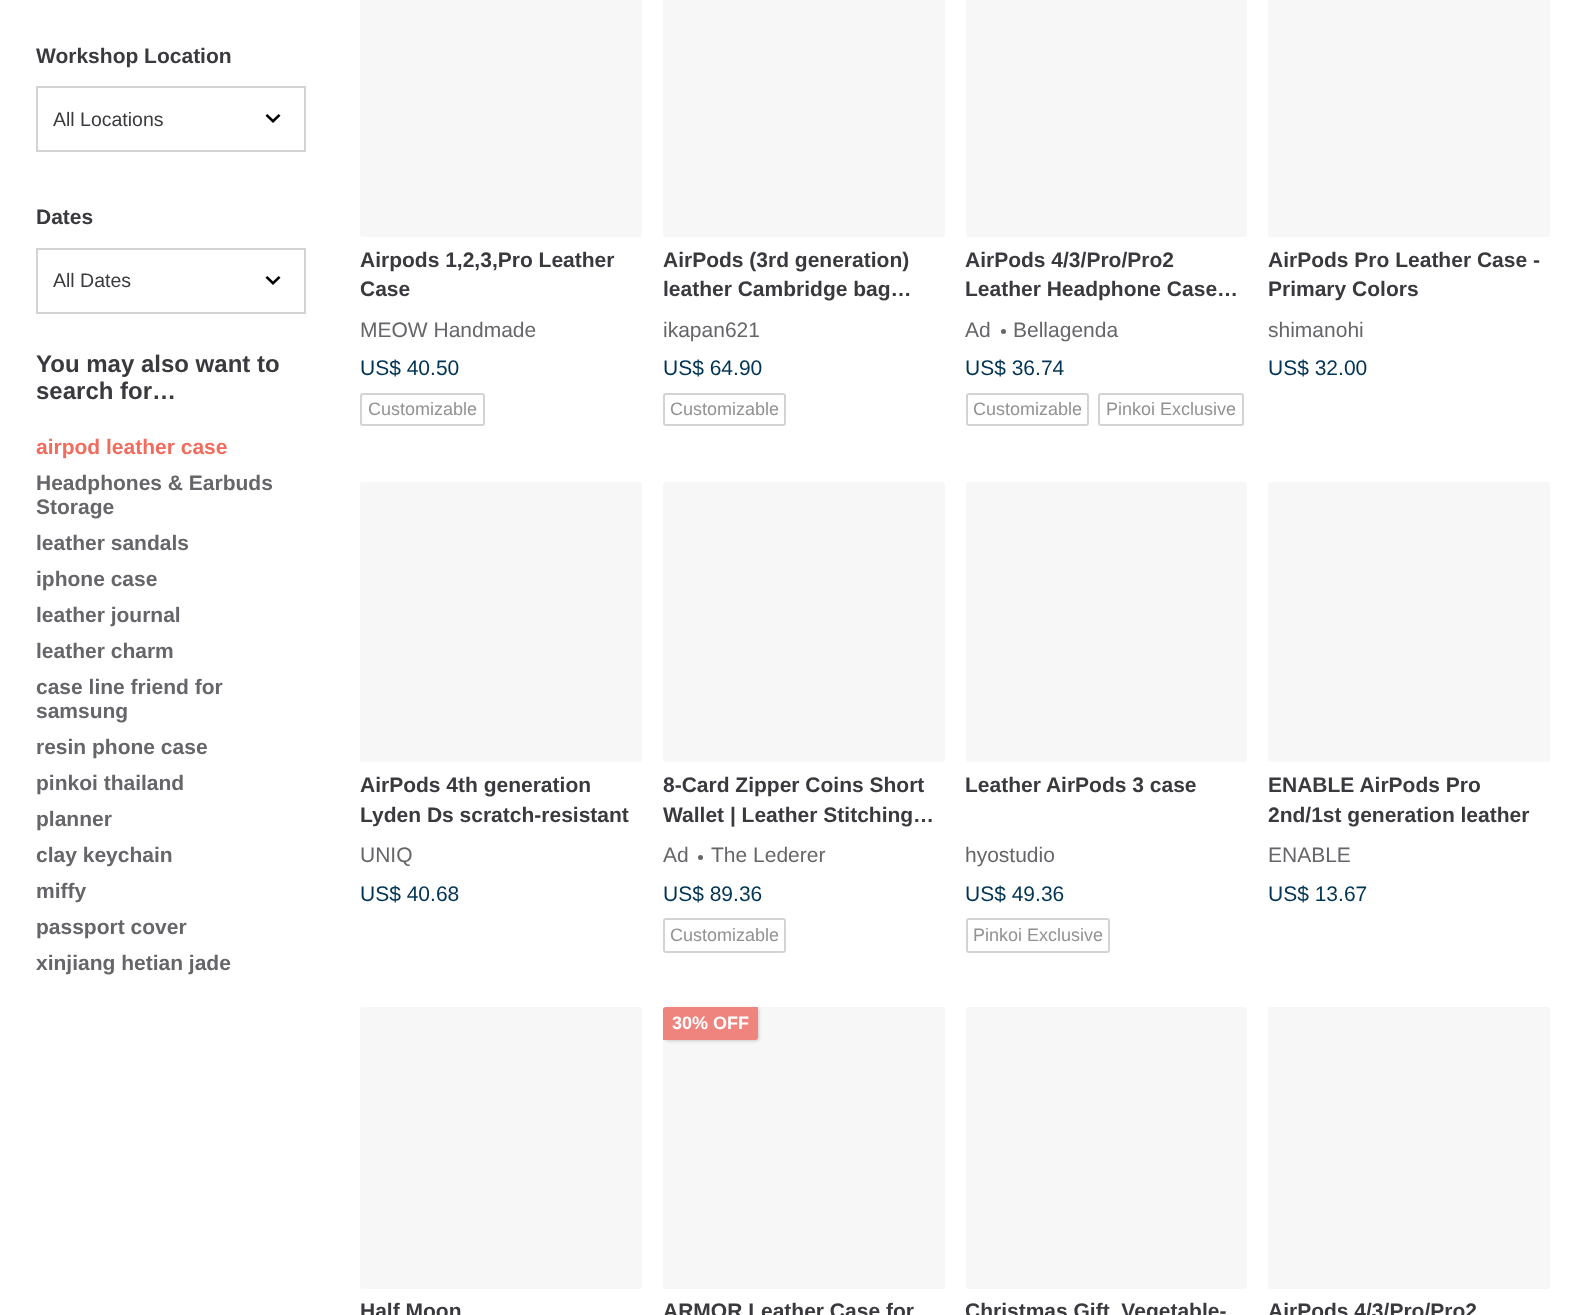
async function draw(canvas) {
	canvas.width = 1585;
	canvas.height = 1315;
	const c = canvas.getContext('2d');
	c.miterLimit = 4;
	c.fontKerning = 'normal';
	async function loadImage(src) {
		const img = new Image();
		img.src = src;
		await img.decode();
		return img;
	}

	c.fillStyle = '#fff';
	c.fillRect(0, 0, 1585, 1315);
	c.font = 'bold 21px Liberation Sans';
	c.fillStyle = '#39393e';
	c.fillText('Workshop Location', 36, 63);
	c.strokeStyle = '#d3d3d5';
	c.lineWidth = 2;
	c.strokeRect(37, 87, 268, 64);
	c.font = '19.5px Liberation Sans';
	c.fillText('All Locations', 53, 126);
	c.drawImage(await loadImage('img1.png'), 265, 114, 16, 9);
	c.font = 'bold 21px Liberation Sans';
	c.fillText('Dates', 36, 224);
	c.strokeRect(37, 249, 268, 64);
	c.font = '19.5px Liberation Sans';
	c.fillText('All Dates', 53, 287);
	c.drawImage(await loadImage('img1.png'), 265, 276, 16, 9);
	c.font = 'bold 24px Liberation Sans';
	c.fillText('You may also want to', 36, 372);
	c.fillText('search for…', 36, 399);
	c.font = 'bold 21px Liberation Sans';
	c.fillStyle = '#f16c5d';
	c.fillText('airpod leather case', 36, 454);
	c.fillStyle = '#66666a';
	for (const [text, x, y] of [
		['Headphones & Earbuds', 36, 490],
		['Storage', 36, 514],
		['leather sandals', 36, 550],
		['iphone case', 36, 586],
		['leather journal', 36, 622],
		['leather charm', 36, 658],
		['case line friend for', 36, 694],
		['samsung', 36, 718],
		['resin phone case', 36, 754],
		['pinkoi thailand', 36, 790],
		['planner', 36, 826],
		['clay keychain', 36, 862],
		['miffy', 36, 898],
		['passport cover', 36, 934],
		['xinjiang hetian jade', 36, 970],
	]) {
		c.fillText(text, x, y);
	}
	c.fillStyle = '#f7f7f8';
	c.beginPath();
	c.roundRect(360, -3, 282, 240, 3);
	c.fill();
	c.fillStyle = '#39393e';
	c.fillText('Airpods 1,2,3,Pro Leather', 360, 267);
	c.fillText('Case', 360, 296);
	c.font = '21px Liberation Sans';
	c.fillStyle = '#66666a';
	c.fillText('MEOW Handmade', 360, 337);
	c.fillStyle = '#003354';
	c.fillText('US$ 40.50', 360, 375);
	c.beginPath();
	c.roundRect(361, 394, 123, 31, 2);
	c.stroke();
	c.font = '18px Liberation Sans';
	c.fillStyle = '#929295';
	c.fillText('Customizable', 368, 415);
	c.fillStyle = '#f7f7f8';
	c.beginPath();
	c.roundRect(663, -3, 282, 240, 3);
	c.fill();
	c.font = 'bold 21px Liberation Sans';
	c.fillStyle = '#39393e';
	c.fillText('AirPods (3rd generation)', 663, 267);
	c.fillText('leather Cambridge bag…', 663, 296);
	c.font = '21px Liberation Sans';
	c.fillStyle = '#66666a';
	c.fillText('ikapan621', 663, 337);
	c.fillStyle = '#003354';
	c.fillText('US$ 64.90', 663, 375);
	c.beginPath();
	c.roundRect(664, 394, 121, 31, 2);
	c.stroke();
	c.font = '18px Liberation Sans';
	c.fillStyle = '#929295';
	c.fillText('Customizable', 670, 415);
	c.fillStyle = '#f7f7f8';
	c.beginPath();
	c.roundRect(966, -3, 281, 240, 3);
	c.fill();
	c.font = 'bold 21px Liberation Sans';
	c.fillStyle = '#39393e';
	c.fillText('AirPods 4/3/Pro/Pro2', 965, 267);
	c.fillText('Leather Headphone Case…', 965, 296);
	c.font = '21px Liberation Sans';
	c.fillStyle = '#66666a';
	c.fillText('Ad', 965, 337);
	c.beginPath();
	c.arc(1003.5, 331.5, 2.5, 0, 2 * Math.PI);
	c.fill();
	c.fillText('Bellagenda', 1013, 337);
	c.fillStyle = '#003354';
	c.fillText('US$ 36.74', 965, 375);
	c.beginPath();
	c.roundRect(967, 394, 121, 31, 2);
	c.stroke();
	c.font = '18px Liberation Sans';
	c.fillStyle = '#929295';
	c.fillText('Customizable', 973, 415);
	c.beginPath();
	c.roundRect(1099, 394, 144, 31, 2);
	c.stroke();
	c.fillText('Pinkoi Exclusive', 1106, 415);
	c.fillStyle = '#f7f7f8';
	c.beginPath();
	c.roundRect(1268, -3, 282, 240, 3);
	c.fill();
	c.font = 'bold 21px Liberation Sans';
	c.fillStyle = '#39393e';
	c.fillText('AirPods Pro Leather Case -', 1268, 267);
	c.fillText('Primary Colors', 1268, 296);
	c.font = '21px Liberation Sans';
	c.fillStyle = '#66666a';
	c.fillText('shimanohi', 1268, 337);
	c.fillStyle = '#003354';
	c.fillText('US$ 32.00', 1268, 375);
	c.fillStyle = '#f7f7f8';
	c.beginPath();
	c.roundRect(360, 482, 282, 280, 3);
	c.fill();
	c.font = 'bold 21px Liberation Sans';
	c.fillStyle = '#39393e';
	c.fillText('AirPods 4th generation', 360, 792);
	c.fillText('Lyden Ds scratch-resistant', 360, 822);
	c.font = '21px Liberation Sans';
	c.fillStyle = '#66666a';
	c.fillText('UNIQ', 360, 862);
	c.fillStyle = '#003354';
	c.fillText('US$ 40.68', 360, 901);
	c.fillStyle = '#f7f7f8';
	c.beginPath();
	c.roundRect(663, 482, 282, 280, 3);
	c.fill();
	c.font = 'bold 21px Liberation Sans';
	c.fillStyle = '#39393e';
	c.fillText('8-Card Zipper Coins Short', 663, 792);
	c.fillText('Wallet | Leather Stitching…', 663, 822);
	c.font = '21px Liberation Sans';
	c.fillStyle = '#66666a';
	c.fillText('Ad', 663, 862);
	c.beginPath();
	c.arc(700.5, 857.5, 2.5, 0, 2 * Math.PI);
	c.fill();
	c.fillText('The Lederer', 711, 862);
	c.fillStyle = '#003354';
	c.fillText('US$ 89.36', 663, 901);
	c.beginPath();
	c.roundRect(664, 919, 121, 33, 2);
	c.stroke();
	c.font = '18px Liberation Sans';
	c.fillStyle = '#929295';
	c.fillText('Customizable', 670, 941);
	c.fillStyle = '#f7f7f8';
	c.beginPath();
	c.roundRect(966, 482, 281, 280, 3);
	c.fill();
	c.font = 'bold 21px Liberation Sans';
	c.fillStyle = '#39393e';
	c.fillText('Leather AirPods 3 case', 965, 792);
	c.font = '21px Liberation Sans';
	c.fillStyle = '#66666a';
	c.fillText('hyostudio', 965, 862);
	c.fillStyle = '#003354';
	c.fillText('US$ 49.36', 965, 901);
	c.beginPath();
	c.roundRect(967, 919, 142, 33, 2);
	c.stroke();
	c.font = '18px Liberation Sans';
	c.fillStyle = '#929295';
	c.fillText('Pinkoi Exclusive', 973, 941);
	c.fillStyle = '#f7f7f8';
	c.beginPath();
	c.roundRect(1268, 482, 282, 280, 3);
	c.fill();
	c.font = 'bold 21px Liberation Sans';
	c.fillStyle = '#39393e';
	c.fillText('ENABLE AirPods Pro', 1268, 792);
	c.fillText('2nd/1st generation leather', 1268, 822);
	c.font = '21px Liberation Sans';
	c.fillStyle = '#66666a';
	c.fillText('ENABLE', 1268, 862);
	c.fillStyle = '#003354';
	c.fillText('US$ 13.67', 1268, 901);
	c.fillStyle = '#f7f7f8';
	c.beginPath();
	c.roundRect(360, 1007, 282, 282, 3);
	c.fill();
	c.font = 'bold 21px Liberation Sans';
	c.fillStyle = '#39393e';
	c.fillText('Half Moon', 360, 1318);
	c.fillStyle = '#f7f7f8';
	c.beginPath();
	c.roundRect(663, 1007, 282, 282, 3);
	c.fill();
	c.fillStyle = '#20202633';
	c.filter = 'blur(1.5px)';
	c.beginPath();
	c.roundRect(665, 1008, 94, 33, 3);
	c.fill();
	c.filter = 'none';
	c.fillStyle = '#ee847d';
	c.beginPath();
	c.roundRect(663, 1007, 95, 33, [3, 0, 3, 0]);
	c.fill();
	c.font = 'bold 18px Liberation Sans';
	c.fillStyle = '#fff';
	c.fillText('30% OFF', 672, 1029);
	c.font = 'bold 21px Liberation Sans';
	c.fillStyle = '#39393e';
	c.fillText('ARMOR Leather Case for', 663, 1318);
	c.fillStyle = '#f7f7f8';
	c.beginPath();
	c.roundRect(966, 1007, 281, 282, 3);
	c.fill();
	c.fillStyle = '#39393e';
	c.fillText('Christmas Gift_Vegetable-', 965, 1318);
	c.fillStyle = '#f7f7f8';
	c.beginPath();
	c.roundRect(1268, 1007, 282, 282, 3);
	c.fill();
	c.fillStyle = '#39393e';
	c.fillText('AirPods 4/3/Pro/Pro2', 1268, 1318);
}

draw(document.querySelector('canvas'));
